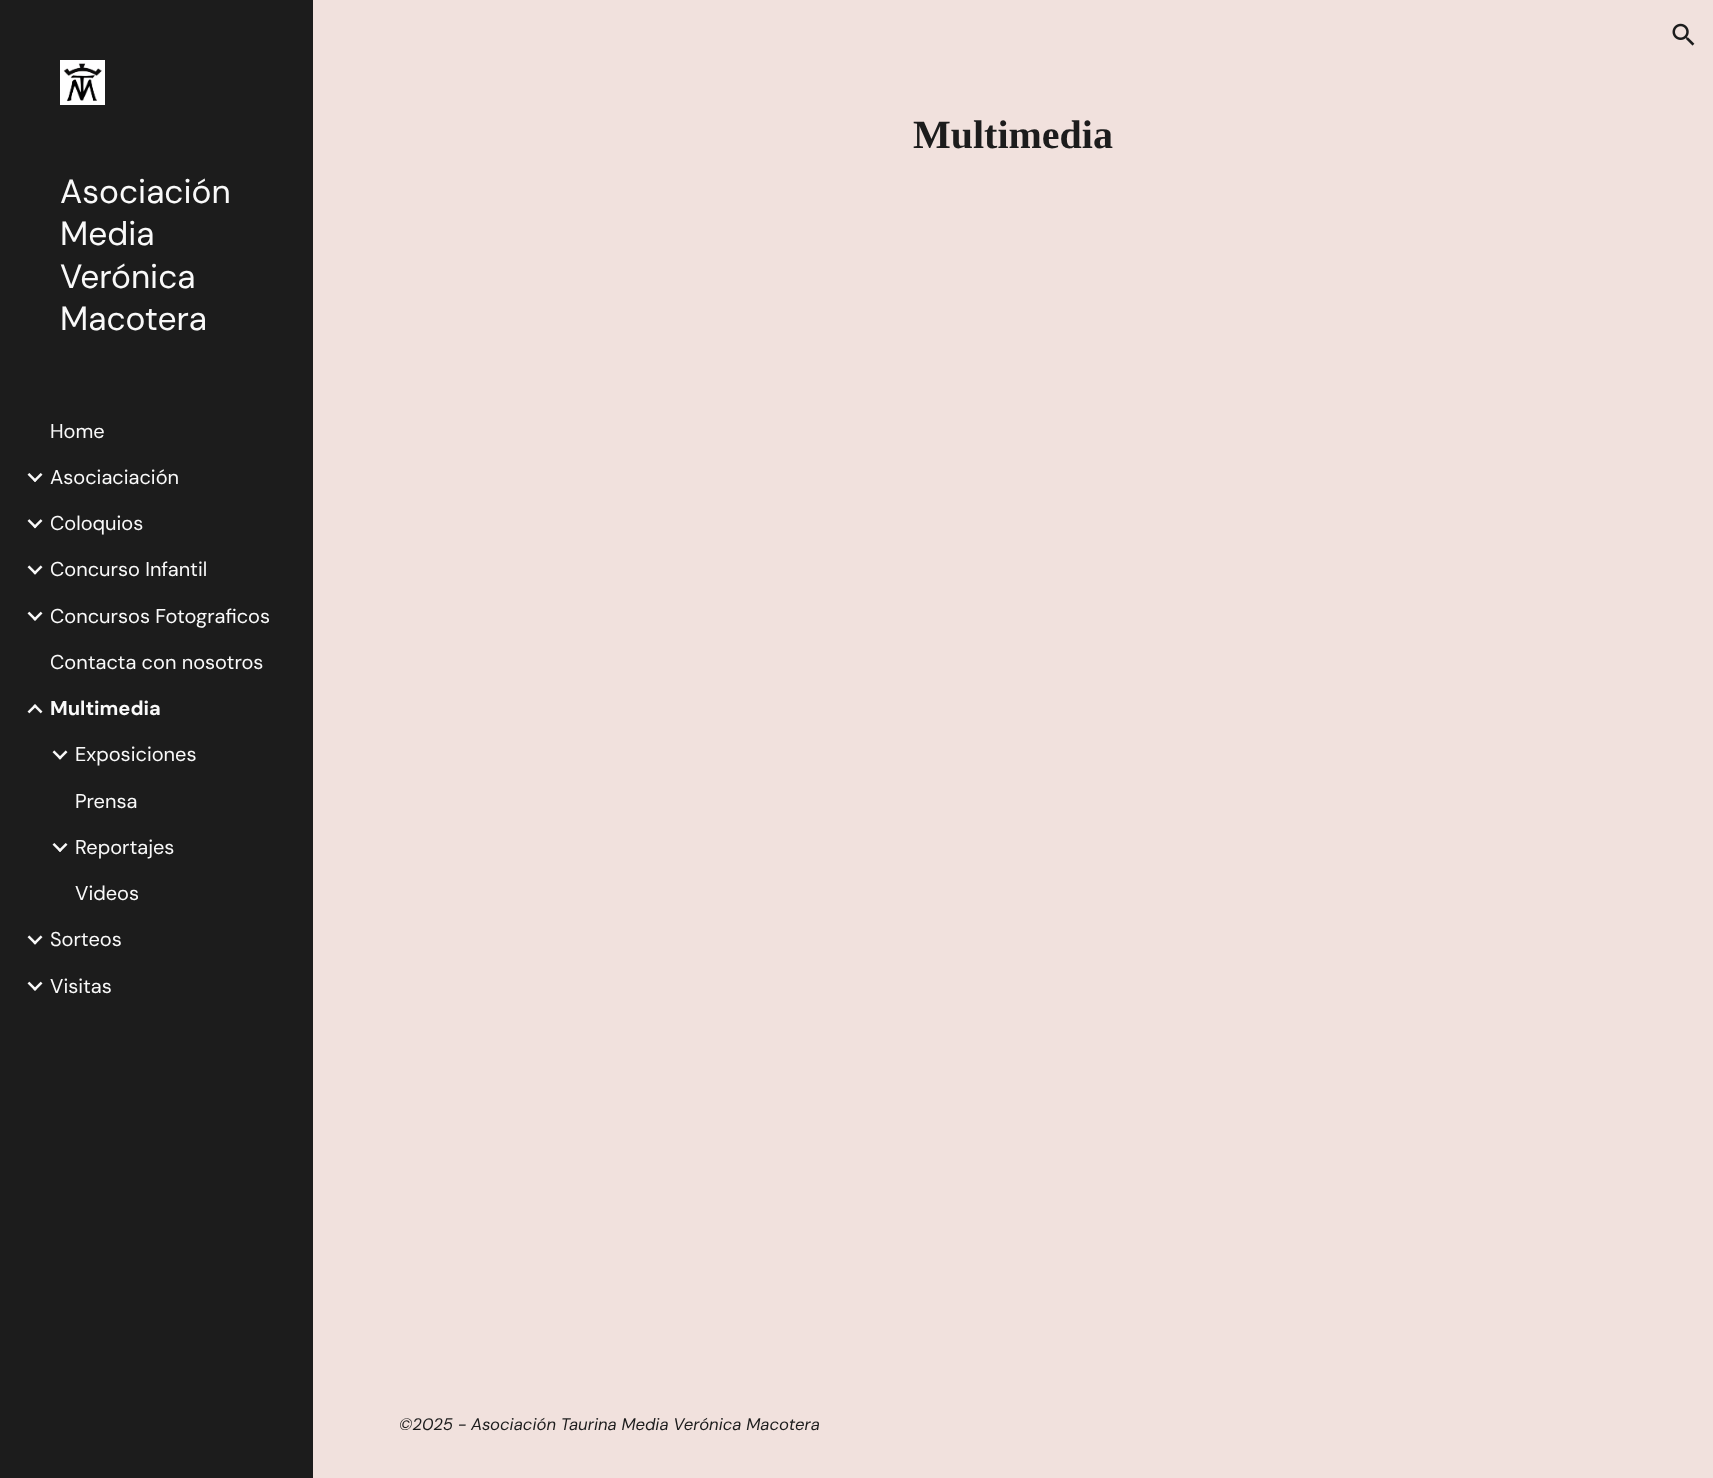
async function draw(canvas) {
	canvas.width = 1713;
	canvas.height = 1478;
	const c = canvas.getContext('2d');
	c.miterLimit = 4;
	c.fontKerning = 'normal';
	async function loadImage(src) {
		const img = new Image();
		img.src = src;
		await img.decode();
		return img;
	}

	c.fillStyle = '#f1e1dd';
	c.fillRect(0, 0, 1713, 1478);
	c.font = 'bold 40px Liberation Serif';
	c.fillStyle = '#1c1c1c';
	c.fillText('Multimedia', 913, 148);
	c.drawImage(await loadImage('img1.png'), 1672, 23, 23, 23);
	c.fillRect(0, 0, 313, 1478);
	c.drawImage(await loadImage('img2.png'), 60, 60, 45, 45);
	c.font = '33.5px DM Sans';
	c.fillStyle = '#f9f9f9';
	for (const [text, x, y] of [
		['Asociación', 60, 203],
		['Media', 60, 245],
		['Verónica', 60, 288],
		['Macotera', 60, 330],
	]) {
		c.fillText(text, x, y);
	}
	c.font = '20px DM Sans';
	c.fillText('Home', 50, 438);
	c.drawImage(await loadImage('img3.png'), 27, 473, 16, 9);
	c.fillText('Asociaciación', 50, 484);
	c.drawImage(await loadImage('img4.png'), 27, 519, 16, 10);
	c.fillText('Coloquios', 50, 530);
	c.drawImage(await loadImage('img5.png'), 27, 565, 16, 10);
	c.fillText('Concurso Infantil', 50, 576);
	c.drawImage(await loadImage('img6.png'), 27, 611, 16, 10);
	c.fillText('Concursos Fotograficos', 50, 623);
	c.fillText('Contacta con nosotros', 50, 669);
	c.drawImage(await loadImage('img7.png'), 27, 704, 16, 10);
	c.font = 'bold 20px DM Sans';
	c.fillText('Multimedia', 50, 715);
	c.drawImage(await loadImage('img5.png'), 52, 750, 16, 10);
	c.font = '20px DM Sans';
	c.fillText('Exposiciones', 75, 761);
	c.fillText('Prensa', 75, 808);
	c.drawImage(await loadImage('img3.png'), 52, 843, 16, 9);
	c.fillText('Reportajes', 75, 854);
	c.fillText('Videos', 75, 900);
	c.drawImage(await loadImage('img5.png'), 27, 935, 16, 10);
	c.fillText('Sorteos', 50, 946);
	c.drawImage(await loadImage('img6.png'), 27, 981, 16, 10);
	c.fillText('Visitas', 50, 993);
	c.font = 'italic 16.7px DM Sans';
	c.fillStyle = '#1c1c1c';
	c.fillText('©2025 - Asociación Taurina Media Verónica Macotera', 399, 1430);
}

draw(document.querySelector('canvas'));
